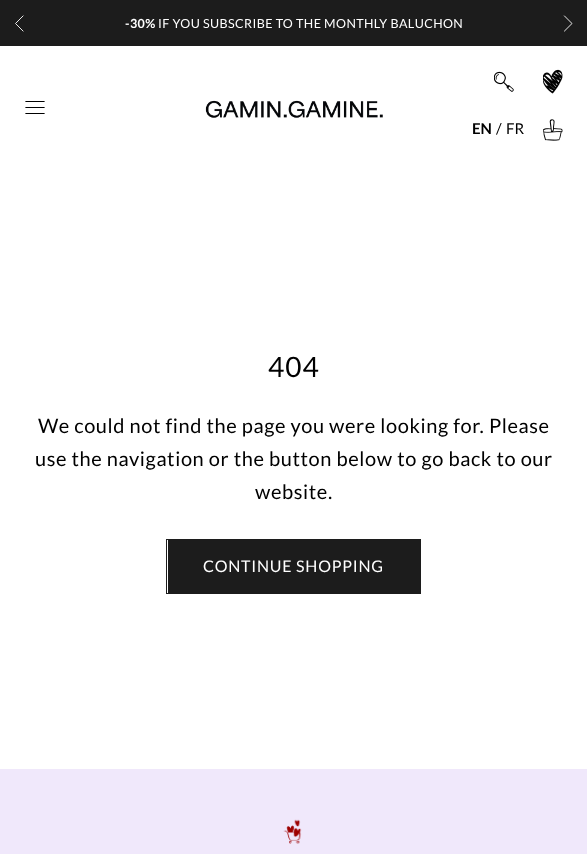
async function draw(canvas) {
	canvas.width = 587;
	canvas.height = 854;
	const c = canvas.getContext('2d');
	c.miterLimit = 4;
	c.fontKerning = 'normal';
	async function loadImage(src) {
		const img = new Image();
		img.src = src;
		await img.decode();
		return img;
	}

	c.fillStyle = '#fff';
	c.fillRect(0, 0, 587, 854);
	c.fillStyle = '#1c1c1c';
	c.fillRect(0, 0, 587, 46);
	c.beginPath();
	c.moveTo(23, 16);
	c.lineTo(15.5, 23.5);
	c.lineTo(23, 31);
	c.strokeStyle = '#fff';
	c.lineWidth = 0.9;
	c.lineCap = 'square';
	c.stroke();
	c.letterSpacing = '0.4px';
	c.font = 'bold 12.5px Lato';
	c.fillStyle = '#fff';
	c.fillText('-30%', 125, 28);
	c.font = '12.5px Lato';
	c.fillText('IF YOU SUBSCRIBE TO THE MONTHLY BALUCHON', 158, 28);
	c.beginPath();
	c.moveTo(564.5, 31);
	c.lineTo(572, 23.5);
	c.lineTo(564.5, 16);
	c.stroke();
	c.beginPath();
	c.moveTo(26, 113.5);
	c.lineTo(44, 113.5);
	c.moveTo(26, 107.5);
	c.lineTo(44, 107.5);
	c.moveTo(26, 101.5);
	c.lineTo(44, 101.5);
	c.strokeStyle = '#000';
	c.lineWidth = 1.2;
	c.stroke();
	c.drawImage(await loadImage('img1.png'), 205, 100, 178, 18);
	c.drawImage(await loadImage('img2.png'), 494, 71, 20, 21);
	c.drawImage(await loadImage('img3.png'), 543, 69, 20, 25);
	c.letterSpacing = '0px';
	c.font = 'bold 15px Lato';
	c.fillStyle = '#000';
	c.fillText('EN', 472, 134);
	c.letterSpacing = '0.6px';
	c.font = '15px Lato';
	c.fillText('/', 496, 134);
	c.letterSpacing = '0px';
	c.fillText('FR', 506, 134);
	c.drawImage(await loadImage('img4.png'), 543, 119, 20, 22);
	c.letterSpacing = '1px';
	c.font = '28px Lato';
	c.fillText('404', 268, 377);
	c.letterSpacing = '0.6px';
	c.font = '20px Lato';
	for (const [text, x, y] of [
		['We could not find the page you were looking for. Please', 38, 433],
		['use the navigation or the button below to go back to our', 35, 466],
		['website.', 255, 499],
	]) {
		c.fillText(text, x, y);
	}
	c.fillStyle = '#1c1c1c';
	c.fillRect(168, 540, 252, 53);
	c.strokeStyle = '#1c1c1c';
	c.lineWidth = 1;
	c.strokeRect(166.5, 539.5, 254, 54);
	c.letterSpacing = '0.75px';
	c.font = '16px Lato';
	c.fillStyle = '#fff';
	c.fillText('CONTINUE SHOPPING', 203, 572);
	c.fillStyle = '#f0e8fb';
	c.fillRect(0, 769, 587, 85);
	c.drawImage(await loadImage('img5.png'), 283, 819, 19, 25);
}

draw(document.querySelector('canvas'));
